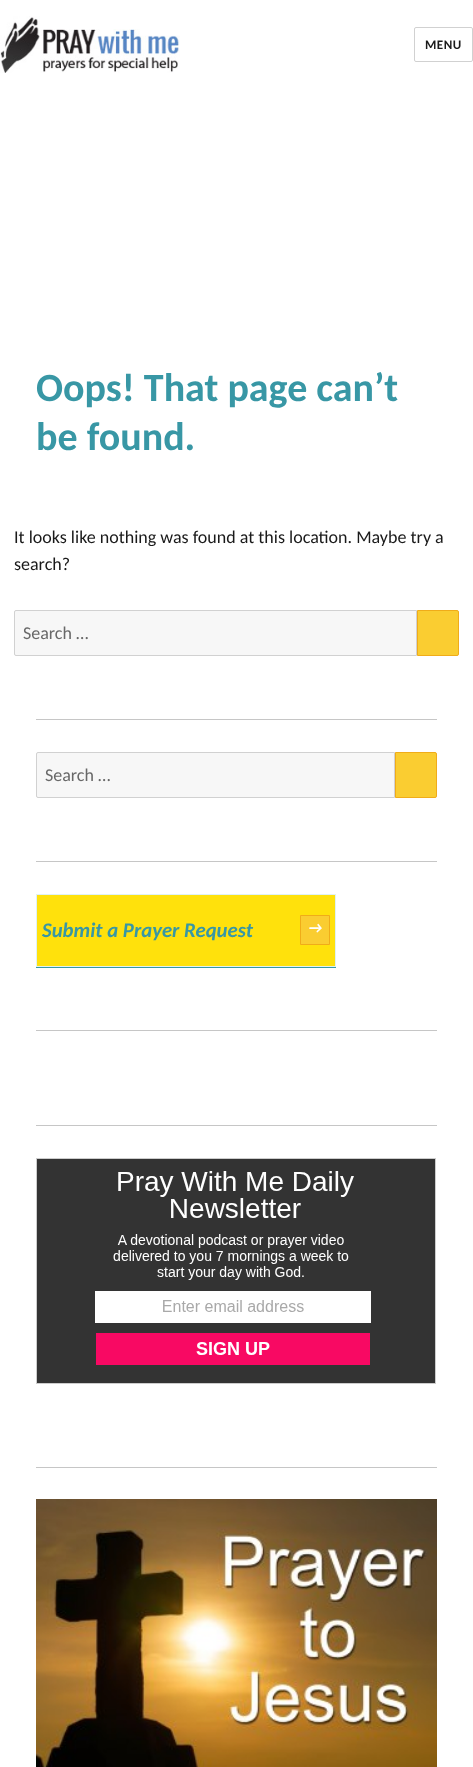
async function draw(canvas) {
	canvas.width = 473;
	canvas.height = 1767;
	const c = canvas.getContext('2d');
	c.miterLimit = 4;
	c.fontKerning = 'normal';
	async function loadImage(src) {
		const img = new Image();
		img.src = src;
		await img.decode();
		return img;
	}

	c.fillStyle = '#fff';
	c.fillRect(0, 0, 473, 1767);
	c.drawImage(await loadImage('img1.png'), 0, 16, 180, 57);
	c.beginPath();
	c.roundRect(414.5, 27.5, 58, 34, 1.5);
	c.strokeStyle = '#d1d1d1';
	c.stroke();
	c.letterSpacing = '0.5px';
	c.font = 'bold 13px Carlito';
	c.fillStyle = '#1a1a1a';
	c.fillText('MENU', 425, 49);
	c.letterSpacing = '0px';
	c.font = 'bold 40px Carlito';
	c.fillStyle = '#3897a5';
	c.fillText('Oops! That page can’t', 36, 401);
	c.fillText('be found.', 36, 450);
	c.font = '18px Carlito';
	c.fillStyle = '#1a1a1a';
	c.fillText('It looks like nothing was found at this location. Maybe try a', 14, 543);
	c.fillText('search?', 14, 570);
	c.fillStyle = '#f7f7f7';
	c.beginPath();
	c.roundRect(14.5, 610.5, 402, 45, [1.5, 0, 0, 1.5]);
	c.fill();
	c.stroke();
	c.fillStyle = '#686868';
	c.fillText('Search …', 23, 639);
	c.fillStyle = '#facd31';
	c.beginPath();
	c.roundRect(417.5, 610.5, 41, 45, [0, 1.5, 1.5, 0]);
	c.fill();
	c.strokeStyle = '#f0ac19';
	c.stroke();
	c.fillStyle = '#c6c6c6';
	c.fillRect(36, 719, 401, 1);
	c.fillStyle = '#f7f7f7';
	c.beginPath();
	c.roundRect(36.5, 752.5, 358, 45, [1.5, 0, 0, 1.5]);
	c.fill();
	c.strokeStyle = '#d1d1d1';
	c.stroke();
	c.fillStyle = '#686868';
	c.fillText('Search …', 45, 781);
	c.fillStyle = '#facd31';
	c.beginPath();
	c.roundRect(395.5, 752.5, 41, 45, [0, 1.5, 1.5, 0]);
	c.fill();
	c.strokeStyle = '#f0ac19';
	c.stroke();
	c.fillStyle = '#c6c6c6';
	c.fillRect(36, 861, 401, 1);
	c.fillStyle = '#3897a5';
	c.fillRect(36, 967, 300, 1);
	c.fillStyle = '#ffe10c';
	c.beginPath();
	c.rect(36.5, 894.5, 299, 72);
	c.fill();
	c.strokeStyle = '#dff2f5';
	c.stroke();
	c.font = 'italic bold 20.75px Carlito';
	c.fillStyle = '#3897a5';
	c.fillText('Submit a Prayer Request', 42, 937);
	c.fillStyle = '#facd31';
	c.beginPath();
	c.rect(300.5, 915.5, 29, 29);
	c.fill();
	c.strokeStyle = '#f0ac19';
	c.stroke();
	c.font = 'italic bold 16px Carlito';
	c.fillStyle = '#fff';
	c.fillText('→', 308, 933);
	c.fillStyle = '#c6c6c6';
	c.fillRect(36, 1030, 401, 1);
	c.fillRect(36, 1125, 401, 1);
	c.drawImage(await loadImage('img2.png'), 36, 1158, 400, 226);
	c.fillRect(36, 1467, 401, 1);
	c.drawImage(await loadImage('img3.png'), 36, 1499, 401, 268);
}

draw(document.querySelector('canvas'));
